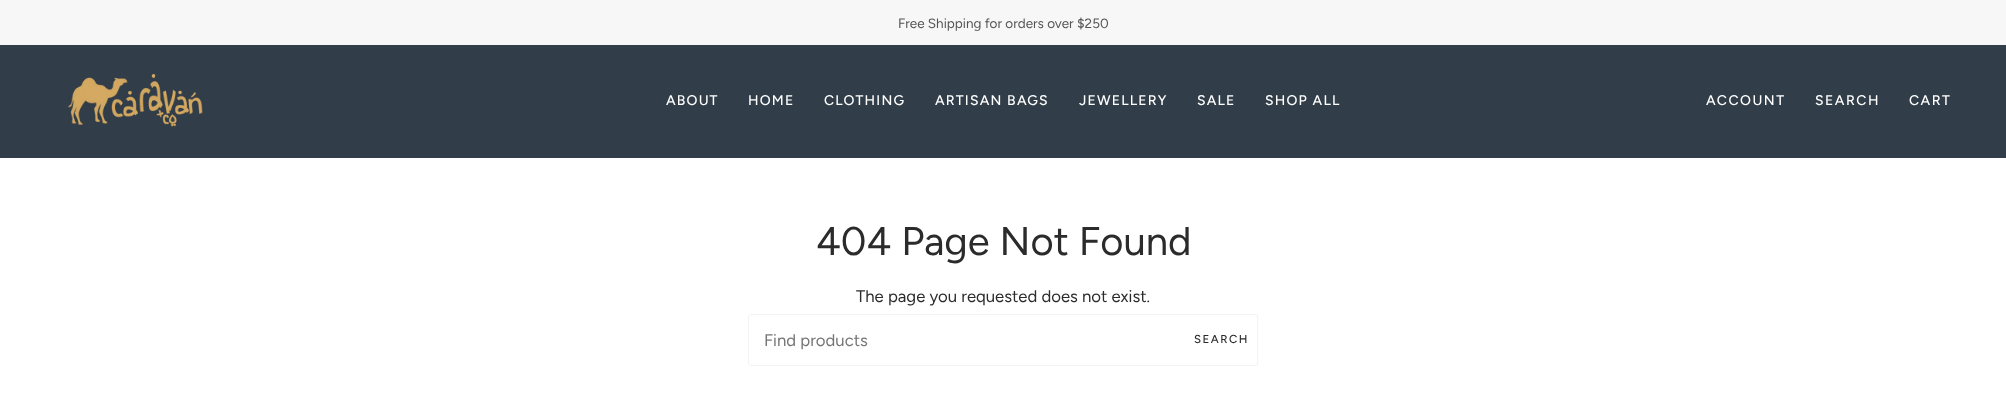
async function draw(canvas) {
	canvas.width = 2006;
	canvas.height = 417;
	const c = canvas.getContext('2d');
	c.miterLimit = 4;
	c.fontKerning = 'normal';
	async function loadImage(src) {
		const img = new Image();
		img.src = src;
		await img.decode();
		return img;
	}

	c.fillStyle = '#fff';
	c.fillRect(0, 0, 2006, 417);
	c.fillStyle = '#f7f7f7';
	c.fillRect(0, 0, 2006, 45);
	c.font = '13.5px Figtree';
	c.fillStyle = '#545454';
	c.fillText('Free Shipping for orders over $250', 898, 28);
	c.fillStyle = '#313d48';
	c.fillRect(0, 45, 2006, 113);
	c.drawImage(await loadImage('img1.png'), 68, 74, 135, 53);
	c.letterSpacing = '1.2px';
	c.font = '500 14px Figtree';
	c.fillStyle = '#fff';
	for (const [text, x, y] of [
		['ABOUT', 666, 105],
		['HOME', 748, 105],
		['CLOTHING', 824, 105],
		['ARTISAN BAGS', 935, 105],
		['JEWELLERY', 1079, 105],
		['SALE', 1197, 105],
		['SHOP ALL', 1265, 105],
	]) {
		c.fillText(text, x, y);
	}
	c.letterSpacing = '1.5px';
	for (const [text, x, y] of [
		['ACCOUNT', 1706, 105],
		['SEARCH', 1815, 105],
		['CART', 1909, 105],
	]) {
		c.fillText(text, x, y);
	}
	c.letterSpacing = '0px';
	c.font = '40px Figtree';
	c.fillStyle = '#2b2b2b';
	c.fillText('404 Page Not Found', 816, 255);
	c.font = '16.75px Figtree';
	c.fillText('The page you requested does not exist.', 856, 302);
	c.beginPath();
	c.roundRect(748.5, 314.5, 509, 51, 2.5);
	c.strokeStyle = '#f3f3f3';
	c.stroke();
	c.fillStyle = '#757575';
	c.fillText('Find products', 764, 346);
	c.letterSpacing = '1.5px';
	c.font = '500 11.5px Figtree';
	c.fillStyle = '#2b2b2b';
	c.fillText('SEARCH', 1194, 343);
}

draw(document.querySelector('canvas'));
